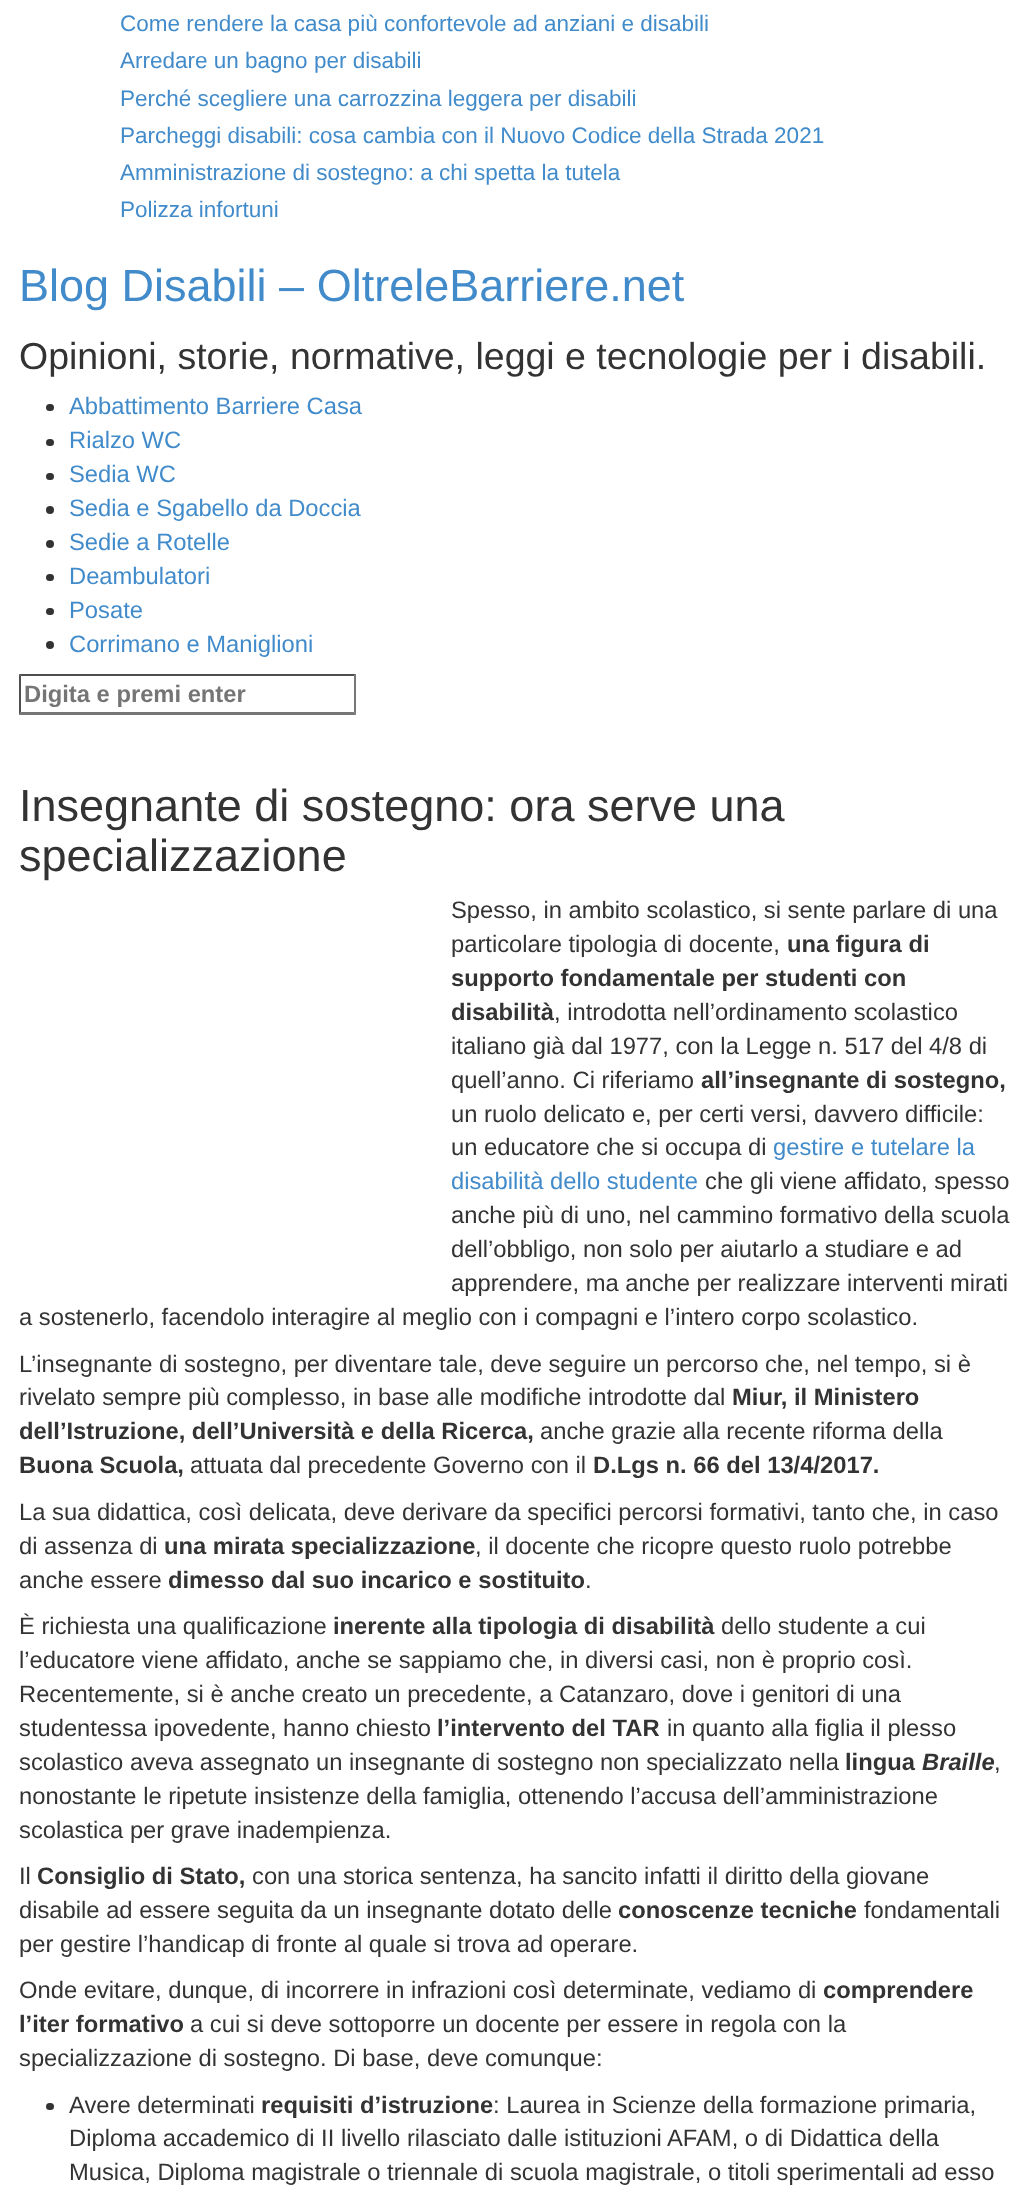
async function draw(canvas) {
	canvas.width = 1028;
	canvas.height = 2192;
	const c = canvas.getContext('2d');
	c.miterLimit = 4;
	c.fontKerning = 'normal';

	c.fillStyle = '#fff';
	c.fillRect(0, 0, 1028, 2192);
	c.font = '22.5px Liberation Sans';
	c.fillStyle = '#428bca';
	for (const [text, x, y] of [
		['Come rendere la casa più confortevole ad anziani e disabili', 120, 31],
		['Arredare un bagno per disabili', 120, 68],
		['Perché scegliere una carrozzina leggera per disabili', 120, 106],
		['Parcheggi disabili: cosa cambia con il Nuovo Codice della Strada 2021', 120, 143],
		['Amministrazione di sostegno: a chi spetta la tutela', 120, 180],
		['Polizza infortuni', 120, 217],
	]) {
		c.fillText(text, x, y);
	}
	c.font = '45px Liberation Sans';
	c.fillText('Blog Disabili – OltreleBarriere.net', 19, 301);
	c.font = '37.5px Liberation Sans';
	c.fillStyle = '#333';
	c.fillText('Opinioni, storie, normative, leggi e tecnologie per i disabili.', 19, 369);
	c.beginPath();
	c.roundRect(46, 404, 8, 7, 3.5);
	c.fill();
	c.font = '23.75px Liberation Sans';
	c.fillStyle = '#428bca';
	c.fillText('Abbattimento Barriere Casa', 69, 414);
	c.fillStyle = '#333';
	c.beginPath();
	c.roundRect(46, 439, 8, 7, 3.5);
	c.fill();
	c.fillStyle = '#428bca';
	c.fillText('Rialzo WC', 69, 448);
	c.fillStyle = '#333';
	c.beginPath();
	c.roundRect(46, 473, 8, 7, 3.5);
	c.fill();
	c.fillStyle = '#428bca';
	c.fillText('Sedia WC', 69, 482);
	c.fillStyle = '#333';
	c.beginPath();
	c.arc(50, 510, 4, 0, 2 * Math.PI);
	c.fill();
	c.fillStyle = '#428bca';
	c.fillText('Sedia e Sgabello da Doccia', 69, 516);
	c.fillStyle = '#333';
	c.beginPath();
	c.arc(50, 544, 4, 0, 2 * Math.PI);
	c.fill();
	c.fillStyle = '#428bca';
	c.fillText('Sedie a Rotelle', 69, 550);
	c.fillStyle = '#333';
	c.beginPath();
	c.roundRect(46, 574, 8, 7, 3.5);
	c.fill();
	c.fillStyle = '#428bca';
	c.fillText('Deambulatori', 69, 584);
	c.fillStyle = '#333';
	c.beginPath();
	c.roundRect(46, 608, 8, 7, 3.5);
	c.fill();
	c.fillStyle = '#428bca';
	c.fillText('Posate', 69, 618);
	c.fillStyle = '#333';
	c.beginPath();
	c.arc(50, 645, 4, 0, 2 * Math.PI);
	c.fill();
	c.fillStyle = '#428bca';
	c.fillText('Corrimano e Maniglioni', 69, 652);
	c.fillStyle = '#4f4f4f';
	c.beginPath();
	c.moveTo(19, 674);
	c.lineTo(356, 674);
	c.lineTo(354, 676);
	c.lineTo(21, 676);
	c.closePath();
	c.fill();
	c.fillStyle = '#767676';
	c.beginPath();
	c.moveTo(356, 674);
	c.lineTo(356, 715);
	c.lineTo(354, 712);
	c.lineTo(354, 676);
	c.closePath();
	c.fill();
	c.beginPath();
	c.moveTo(356, 715);
	c.lineTo(19, 715);
	c.lineTo(21, 712);
	c.lineTo(354, 712);
	c.closePath();
	c.fill();
	c.fillStyle = '#4f4f4f';
	c.beginPath();
	c.moveTo(19, 715);
	c.lineTo(19, 674);
	c.lineTo(21, 676);
	c.lineTo(21, 712);
	c.closePath();
	c.fill();
	c.font = 'bold 23.75px Liberation Sans';
	c.fillStyle = '#757575';
	c.fillText('Digita e premi enter', 24, 702);
	c.font = '45px Liberation Sans';
	c.fillStyle = '#333';
	c.fillText('Insegnante di sostegno: ora serve una', 19, 821);
	c.fillText('specializzazione', 19, 871);
	c.font = '23.75px Liberation Sans';
	c.fillText('Spesso, in ambito scolastico, si sente parlare di una', 451, 918);
	c.fillText('particolare tipologia di docente,', 451, 952);
	c.font = 'bold 23.75px Liberation Sans';
	for (const [text, x, y] of [
		['una figura di', 787, 952],
		['supporto fondamentale per studenti con', 451, 986],
		['disabilità', 451, 1020],
	]) {
		c.fillText(text, x, y);
	}
	c.font = '23.75px Liberation Sans';
	for (const [text, x, y] of [
		[', introdotta nell’ordinamento scolastico', 554, 1020],
		['italiano già dal 1977, con la Legge n. 517 del 4/8 di', 451, 1054],
		['quell’anno. Ci riferiamo', 451, 1088],
	]) {
		c.fillText(text, x, y);
	}
	c.font = 'bold 23.75px Liberation Sans';
	c.fillText('all’insegnante di sostegno,', 701, 1088);
	c.font = '23.75px Liberation Sans';
	c.fillText('un ruolo delicato e, per certi versi, davvero difficile:', 451, 1122);
	c.fillText('un educatore che si occupa di', 451, 1155);
	c.fillStyle = '#428bca';
	c.fillText('gestire e tutelare la', 773, 1155);
	c.fillText('disabilità dello studente', 451, 1189);
	c.fillStyle = '#333';
	for (const [text, x, y] of [
		['che gli viene affidato, spesso', 705, 1189],
		['anche più di uno, nel cammino formativo della scuola', 451, 1223],
		['dell’obbligo, non solo per aiutarlo a studiare e ad', 451, 1257],
		['apprendere, ma anche per realizzare interventi mirati', 451, 1291],
		['a sostenerlo, facendolo interagire al meglio con i compagni e l’intero corpo scolastico.', 19, 1325],
		['L’insegnante di sostegno, per diventare tale, deve seguire un percorso che, nel tempo, si è', 19, 1372],
		['rivelato sempre più complesso, in base alle modifiche introdotte dal', 19, 1405],
	]) {
		c.fillText(text, x, y);
	}
	c.font = 'bold 23.75px Liberation Sans';
	c.fillText('Miur, il Ministero', 732, 1405);
	c.fillText('dell’Istruzione, dell’Università e della Ricerca,', 19, 1439);
	c.font = '23.75px Liberation Sans';
	c.fillText('anche grazie alla recente riforma della', 540, 1439);
	c.font = 'bold 23.75px Liberation Sans';
	c.fillText('Buona Scuola,', 19, 1473);
	c.font = '23.75px Liberation Sans';
	c.fillText('attuata dal precedente Governo con il', 190, 1473);
	c.font = 'bold 23.75px Liberation Sans';
	c.fillText('D.Lgs n. 66 del 13/4/2017.', 593, 1473);
	c.font = '23.75px Liberation Sans';
	c.fillText('La sua didattica, così delicata, deve derivare da specifici percorsi formativi, tanto che, in caso', 19, 1520);
	c.fillText('di assenza di', 19, 1554);
	c.font = 'bold 23.75px Liberation Sans';
	c.fillText('una mirata specializzazione', 164, 1554);
	c.font = '23.75px Liberation Sans';
	c.fillText(', il docente che ricopre questo ruolo potrebbe', 475, 1554);
	c.fillText('anche essere', 19, 1588);
	c.font = 'bold 23.75px Liberation Sans';
	c.fillText('dimesso dal suo incarico e sostituito', 168, 1588);
	c.font = '23.75px Liberation Sans';
	c.fillText('.', 585, 1588);
	c.fillText('È richiesta una qualificazione', 19, 1634);
	c.font = 'bold 23.75px Liberation Sans';
	c.fillText('inerente alla tipologia di disabilità', 333, 1634);
	c.font = '23.75px Liberation Sans';
	for (const [text, x, y] of [
		['dello studente a cui', 721, 1634],
		['l’educatore viene affidato, anche se sappiamo che, in diversi casi, non è proprio così.', 19, 1668],
		['Recentemente, si è anche creato un precedente, a Catanzaro, dove i genitori di una', 19, 1702],
		['studentessa ipovedente, hanno chiesto', 19, 1736],
	]) {
		c.fillText(text, x, y);
	}
	c.font = 'bold 23.75px Liberation Sans';
	c.fillText('l’intervento del TAR', 437, 1736);
	c.font = '23.75px Liberation Sans';
	c.fillText('in quanto alla figlia il plesso', 667, 1736);
	c.fillText('scolastico aveva assegnato un insegnante di sostegno non specializzato nella', 19, 1770);
	c.font = 'bold 23.75px Liberation Sans';
	c.fillText('lingua', 845, 1770);
	c.font = 'italic bold 23.75px Liberation Sans';
	c.fillText('Braille', 922, 1770);
	c.font = '23.75px Liberation Sans';
	for (const [text, x, y] of [
		[',', 994, 1770],
		['nonostante le ripetute insistenze della famiglia, ottenendo l’accusa dell’amministrazione', 19, 1804],
		['scolastica per grave inadempienza.', 19, 1838],
		['Il', 19, 1884],
	]) {
		c.fillText(text, x, y);
	}
	c.font = 'bold 23.75px Liberation Sans';
	c.fillText('Consiglio di Stato,', 37, 1884);
	c.font = '23.75px Liberation Sans';
	c.fillText('con una storica sentenza, ha sancito infatti il diritto della giovane', 252, 1884);
	c.fillText('disabile ad essere seguita da un insegnante dotato delle', 19, 1918);
	c.font = 'bold 23.75px Liberation Sans';
	c.fillText('conoscenze tecniche', 618, 1918);
	c.font = '23.75px Liberation Sans';
	for (const [text, x, y] of [
		['fondamentali', 864, 1918],
		['per gestire l’handicap di fronte al quale si trova ad operare.', 19, 1952],
		['Onde evitare, dunque, di incorrere in infrazioni così determinate, vediamo di', 19, 1998],
	]) {
		c.fillText(text, x, y);
	}
	c.font = 'bold 23.75px Liberation Sans';
	c.fillText('comprendere', 823, 1998);
	c.fillText('l’iter formativo', 19, 2032);
	c.font = '23.75px Liberation Sans';
	c.fillText('a cui si deve sottoporre un docente per essere in regola con la', 190, 2032);
	c.fillText('specializzazione di sostegno. Di base, deve comunque:', 19, 2066);
	c.beginPath();
	c.roundRect(46, 2103, 8, 7, 3.5);
	c.fill();
	c.fillText('Avere determinati', 69, 2113);
	c.font = 'bold 23.75px Liberation Sans';
	c.fillText('requisiti d’istruzione', 261, 2113);
	c.font = '23.75px Liberation Sans';
	for (const [text, x, y] of [
		[': Laurea in Scienze della formazione primaria,', 493, 2113],
		['Diploma accademico di II livello rilasciato dalle istituzioni AFAM, o di Didattica della', 69, 2146],
		['Musica, Diploma magistrale o triennale di scuola magistrale, o titoli sperimentali ad esso', 69, 2180],
	]) {
		c.fillText(text, x, y);
	}
}

draw(document.querySelector('canvas'));
